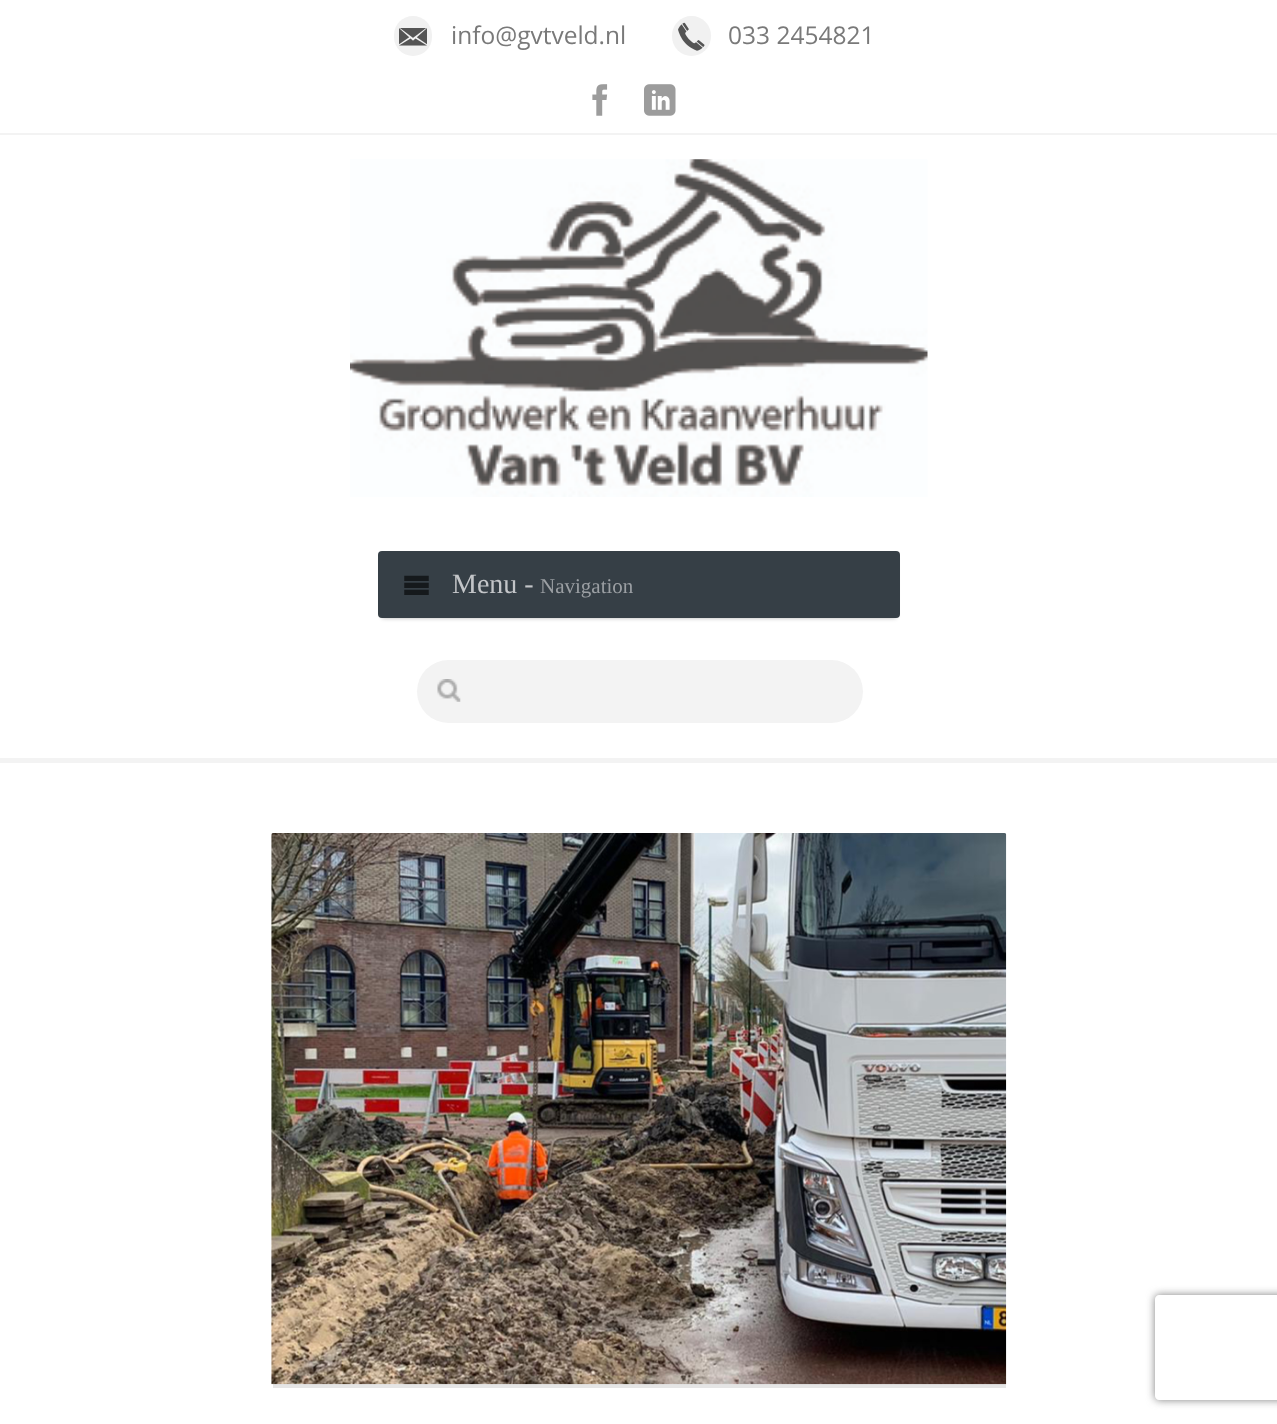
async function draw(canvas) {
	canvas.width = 1277;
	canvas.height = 1424;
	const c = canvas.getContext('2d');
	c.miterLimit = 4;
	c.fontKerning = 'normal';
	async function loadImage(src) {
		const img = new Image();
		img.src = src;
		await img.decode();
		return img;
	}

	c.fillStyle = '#fff';
	c.fillRect(0, 0, 1277, 1424);
	c.fillStyle = '#f3f3f3';
	c.fillRect(0, 133, 1277, 2);
	c.fillStyle = '#f1f1f1';
	c.beginPath();
	c.roundRect(394, 16, 38, 40, 19);
	c.fill();
	c.font = '24.5px Open Sans';
	c.fillStyle = '#797979';
	c.fillText('info@gvtveld.nl', 451, 44);
	c.drawImage(await loadImage('img1.png'), 399, 28, 28, 18);
	c.fillStyle = '#f1f1f1';
	c.beginPath();
	c.roundRect(672, 16, 39, 40, 19.5);
	c.fill();
	c.drawImage(await loadImage('img2.png'), 678, 22, 27, 29);
	c.fillStyle = '#797979';
	c.fillText('033 2454821', 728, 44);
	c.drawImage(await loadImage('img3.png'), 592, 84, 16, 32);
	c.drawImage(await loadImage('img4.png'), 644, 84, 32, 32);
	c.fillStyle = '#f3f3f3';
	c.fillRect(0, 758, 1277, 5);
	c.drawImage(await loadImage('img5.png'), 350, 159, 578, 338);
	c.fillStyle = '#0000004d';
	c.filter = 'blur(2px)';
	c.beginPath();
	c.rect(382, 558, 514, 60);
	c.fill();
	c.filter = 'none';
	c.fillStyle = '#363f46';
	c.beginPath();
	c.roundRect(378, 551, 522, 67, 4);
	c.fill();
	c.drawImage(await loadImage('img6.png'), 404, 575, 25, 20);
	c.font = '28px Liberation Serif';
	c.fillStyle = '#c3c5c8';
	c.fillText('Menu -', 452, 593);
	c.font = '21px Liberation Serif';
	c.fillStyle = '#9b9fa3';
	c.fillText('Navigation', 540, 593);
	c.fillStyle = '#f3f3f3';
	c.beginPath();
	c.roundRect(417, 660, 446, 63, 31.5);
	c.fill();
	c.drawImage(await loadImage('img7.png'), 437, 679, 24, 23);
	c.fillStyle = '#e5e5e5';
	c.fillRect(273, 1384, 733, 4);
	c.drawImage(await loadImage('img8.png'), 271, 833, 736, 552);
	c.save();
	c.beginPath();
	c.moveTo(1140, 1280);
	c.lineTo(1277, 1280);
	c.lineTo(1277, 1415);
	c.lineTo(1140, 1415);
	c.closePath();
	c.moveTo(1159, 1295);
	c.lineTo(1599, 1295);
	c.bezierCurveTo(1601, 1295, 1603, 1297, 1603, 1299);
	c.lineTo(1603, 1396);
	c.bezierCurveTo(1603, 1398, 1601, 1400, 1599, 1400);
	c.lineTo(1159, 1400);
	c.bezierCurveTo(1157, 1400, 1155, 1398, 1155, 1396);
	c.lineTo(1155, 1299);
	c.bezierCurveTo(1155, 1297, 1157, 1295, 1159, 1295);
	c.closePath();
	c.clip('evenodd');
	c.fillStyle = '#808080';
	c.filter = 'blur(4.5px)';
	c.beginPath();
	c.roundRect(1155, 1295, 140, 105, 4);
	c.fill();
	c.filter = 'none';
	c.restore();
}

draw(document.querySelector('canvas'));
